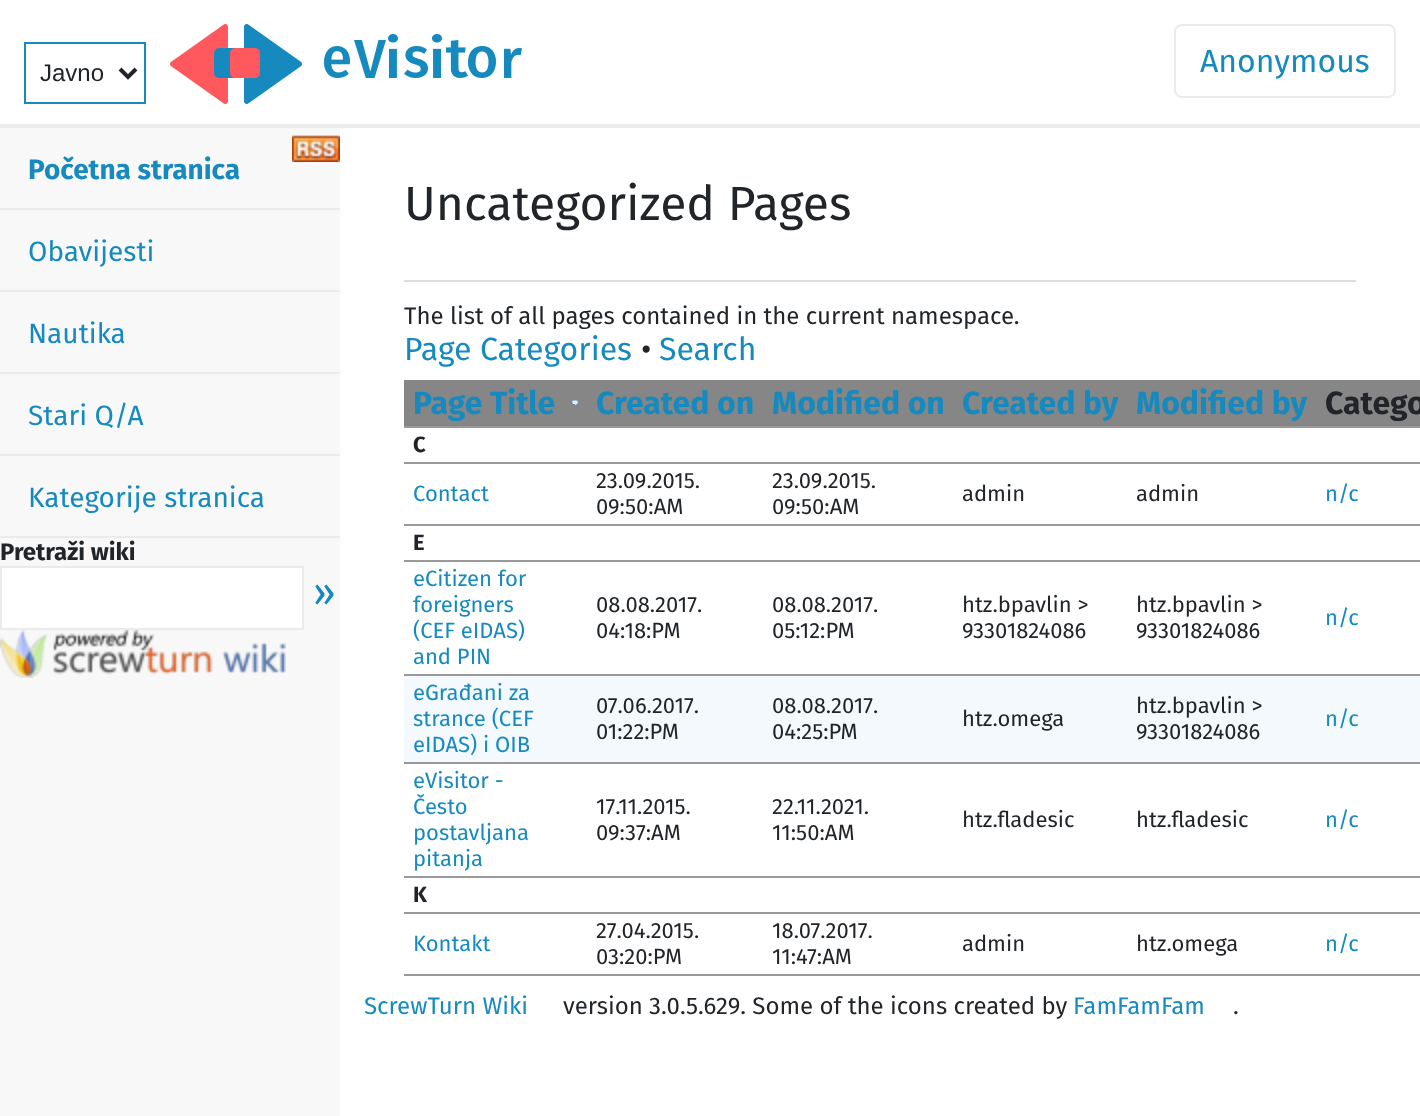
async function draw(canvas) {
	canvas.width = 1420;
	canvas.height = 1116;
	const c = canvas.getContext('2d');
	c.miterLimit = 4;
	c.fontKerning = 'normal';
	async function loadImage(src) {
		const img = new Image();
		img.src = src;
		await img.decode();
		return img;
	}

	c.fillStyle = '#fff';
	c.fillRect(0, 0, 1420, 1116);
	c.fillStyle = '#ebebeb';
	c.fillRect(0, 124, 1420, 4);
	c.strokeStyle = '#168abf';
	c.lineWidth = 2;
	c.strokeRect(25, 43, 120, 60);
	c.beginPath();
	c.moveTo(120, 69);
	c.lineTo(128, 77);
	c.lineTo(136, 69);
	c.strokeStyle = '#212529';
	c.lineWidth = 4;
	c.stroke();
	c.font = '24px Liberation Sans';
	c.fillStyle = '#212529';
	c.fillText('Javno', 40, 81);
	c.drawImage(await loadImage('img1.png'), 170, 24, 352, 80);
	c.beginPath();
	c.roundRect(1175, 25, 220, 72, 7);
	c.strokeStyle = '#ebebeb';
	c.lineWidth = 2;
	c.stroke();
	c.font = '32px Fira Sans';
	c.fillStyle = '#168abf';
	c.fillText('Anonymous', 1200, 72);
	c.fillStyle = '#f8f8f8';
	c.fillRect(0, 128, 340, 988);
	c.drawImage(await loadImage('img2.png'), 292, 135, 48, 27);
	c.fillStyle = '#ebebeb';
	c.fillRect(0, 208, 340, 2);
	c.font = 'bold 28px Fira Sans';
	c.fillStyle = '#168abf';
	c.fillText('Početna stranica', 28, 179);
	c.fillStyle = '#ebebeb';
	c.fillRect(0, 290, 340, 2);
	c.font = '28px Fira Sans';
	c.fillStyle = '#168abf';
	c.fillText('Obavijesti', 28, 261);
	c.fillStyle = '#ebebeb';
	c.fillRect(0, 372, 340, 2);
	c.fillStyle = '#168abf';
	c.fillText('Nautika', 28, 343);
	c.fillStyle = '#ebebeb';
	c.fillRect(0, 454, 340, 2);
	c.fillStyle = '#168abf';
	c.fillText('Stari Q/A', 28, 425);
	c.fillStyle = '#ebebeb';
	c.fillRect(0, 536, 340, 2);
	c.fillStyle = '#168abf';
	c.fillText('Kategorije stranica', 28, 507);
	c.font = 'bold 24px Fira Sans';
	c.fillStyle = '#212529';
	c.fillText('Pretraži wiki', 0, 560);
	c.fillStyle = '#fff';
	c.beginPath();
	c.rect(1, 567, 302, 62);
	c.fill();
	c.stroke();
	c.font = '40px Fira Sans';
	c.fillStyle = '#168abf';
	c.fillText('»', 313, 606);
	c.drawImage(await loadImage('img3.png'), 0, 630, 286, 48);
	c.fillStyle = '#ddd';
	c.fillRect(404, 280, 952, 2);
	c.font = '48px Fira Sans';
	c.fillStyle = '#212529';
	c.fillText('Uncategorized Pages', 404, 220);
	c.font = '24px Fira Sans';
	c.fillText('The list of all pages contained in the current namespace.', 404, 324);
	c.font = '32px Fira Sans';
	c.fillStyle = '#168abf';
	c.fillText('Page Categories', 404, 360);
	c.fillStyle = '#212529';
	c.fillText('•', 641, 360);
	c.fillStyle = '#168abf';
	c.fillText('Search', 659, 360);
	c.fillStyle = '#868686';
	c.fillRect(404, 380, 1016, 46);
	c.fillStyle = '#999';
	c.fillRect(404, 426, 1016, 2);
	c.font = 'bold 32px Fira Sans';
	c.fillStyle = '#168abf';
	c.fillText('Page Title', 413, 414);
	c.drawImage(await loadImage('img4.png'), 572, 400, 6, 6);
	for (const [text, x, y] of [
		['Created on', 596, 414],
		['Modified on', 772, 414],
		['Created by', 962, 414],
		['Modified by', 1136, 414],
	]) {
		c.fillText(text, x, y);
	}
	c.fillStyle = '#212529';
	c.fillText('Catego', 1325, 414);
	c.fillStyle = '#999';
	c.fillRect(404, 462, 1016, 2);
	c.font = 'bold 22px Fira Sans';
	c.fillStyle = '#212529';
	c.fillText('C', 413, 452);
	c.fillStyle = '#999';
	c.fillRect(404, 524, 1016, 2);
	c.font = '22px Fira Sans';
	c.fillStyle = '#168abf';
	c.fillText('Contact', 413, 501);
	c.fillStyle = '#212529';
	for (const [text, x, y] of [
		['23.09.2015.', 596, 488],
		['09:50:AM', 596, 514],
		['23.09.2015.', 772, 488],
		['09:50:AM', 772, 514],
		['admin', 962, 501],
		['admin', 1136, 501],
	]) {
		c.fillText(text, x, y);
	}
	c.fillStyle = '#168abf';
	c.fillText('n/c', 1325, 501);
	c.fillStyle = '#999';
	c.fillRect(404, 560, 1016, 2);
	c.font = 'bold 22px Fira Sans';
	c.fillStyle = '#212529';
	c.fillText('E', 413, 550);
	c.fillStyle = '#999';
	c.fillRect(404, 674, 1016, 2);
	c.font = '22px Fira Sans';
	c.fillStyle = '#168abf';
	for (const [text, x, y] of [
		['eCitizen for', 413, 586],
		['foreigners', 413, 612],
		['(CEF eIDAS)', 413, 638],
		['and PIN', 413, 664],
	]) {
		c.fillText(text, x, y);
	}
	c.fillStyle = '#212529';
	for (const [text, x, y] of [
		['08.08.2017.', 596, 612],
		['04:18:PM', 596, 638],
		['08.08.2017.', 772, 612],
		['05:12:PM', 772, 638],
		['htz.bpavlin >', 962, 612],
		['93301824086', 962, 638],
		['htz.bpavlin >', 1136, 612],
		['93301824086', 1136, 638],
	]) {
		c.fillText(text, x, y);
	}
	c.fillStyle = '#168abf';
	c.fillText('n/c', 1325, 625);
	c.fillStyle = '#f3f9fc';
	c.fillRect(404, 676, 1016, 86);
	c.fillStyle = '#999';
	c.fillRect(404, 762, 1016, 2);
	c.fillStyle = '#168abf';
	for (const [text, x, y] of [
		['eGrađani za', 413, 700],
		['strance (CEF', 413, 726],
		['eIDAS) i OIB', 413, 752],
	]) {
		c.fillText(text, x, y);
	}
	c.fillStyle = '#212529';
	for (const [text, x, y] of [
		['07.06.2017.', 596, 713],
		['01:22:PM', 596, 739],
		['08.08.2017.', 772, 713],
		['04:25:PM', 772, 739],
		['htz.omega', 962, 726],
		['htz.bpavlin >', 1136, 713],
		['93301824086', 1136, 739],
	]) {
		c.fillText(text, x, y);
	}
	c.fillStyle = '#168abf';
	c.fillText('n/c', 1325, 726);
	c.fillStyle = '#999';
	c.fillRect(404, 876, 1016, 2);
	c.fillStyle = '#168abf';
	for (const [text, x, y] of [
		['eVisitor -', 413, 788],
		['Često', 413, 814],
		['postavljana', 413, 840],
		['pitanja', 413, 866],
	]) {
		c.fillText(text, x, y);
	}
	c.fillStyle = '#212529';
	for (const [text, x, y] of [
		['17.11.2015.', 596, 814],
		['09:37:AM', 596, 840],
		['22.11.2021.', 772, 814],
		['11:50:AM', 772, 840],
		['htz.fladesic', 962, 827],
		['htz.fladesic', 1136, 827],
	]) {
		c.fillText(text, x, y);
	}
	c.fillStyle = '#168abf';
	c.fillText('n/c', 1325, 827);
	c.fillStyle = '#999';
	c.fillRect(404, 912, 1016, 2);
	c.font = 'bold 22px Fira Sans';
	c.fillStyle = '#212529';
	c.fillText('K', 413, 902);
	c.fillStyle = '#999';
	c.fillRect(404, 974, 1016, 2);
	c.font = '22px Fira Sans';
	c.fillStyle = '#168abf';
	c.fillText('Kontakt', 413, 951);
	c.fillStyle = '#212529';
	for (const [text, x, y] of [
		['27.04.2015.', 596, 938],
		['03:20:PM', 596, 964],
		['18.07.2017.', 772, 938],
		['11:47:AM', 772, 964],
		['admin', 962, 951],
		['htz.omega', 1136, 951],
	]) {
		c.fillText(text, x, y);
	}
	c.fillStyle = '#168abf';
	c.fillText('n/c', 1325, 951);
	c.font = '24px Fira Sans';
	c.fillText('ScrewTurn Wiki', 364, 1014);
	c.fillStyle = '#212529';
	c.fillText('version 3.0.5.629. Some of the icons created by', 563, 1014);
	c.fillStyle = '#168abf';
	c.fillText('FamFamFam', 1073, 1014);
	c.fillStyle = '#212529';
	c.fillText('.', 1233, 1014);
}

draw(document.querySelector('canvas'));
